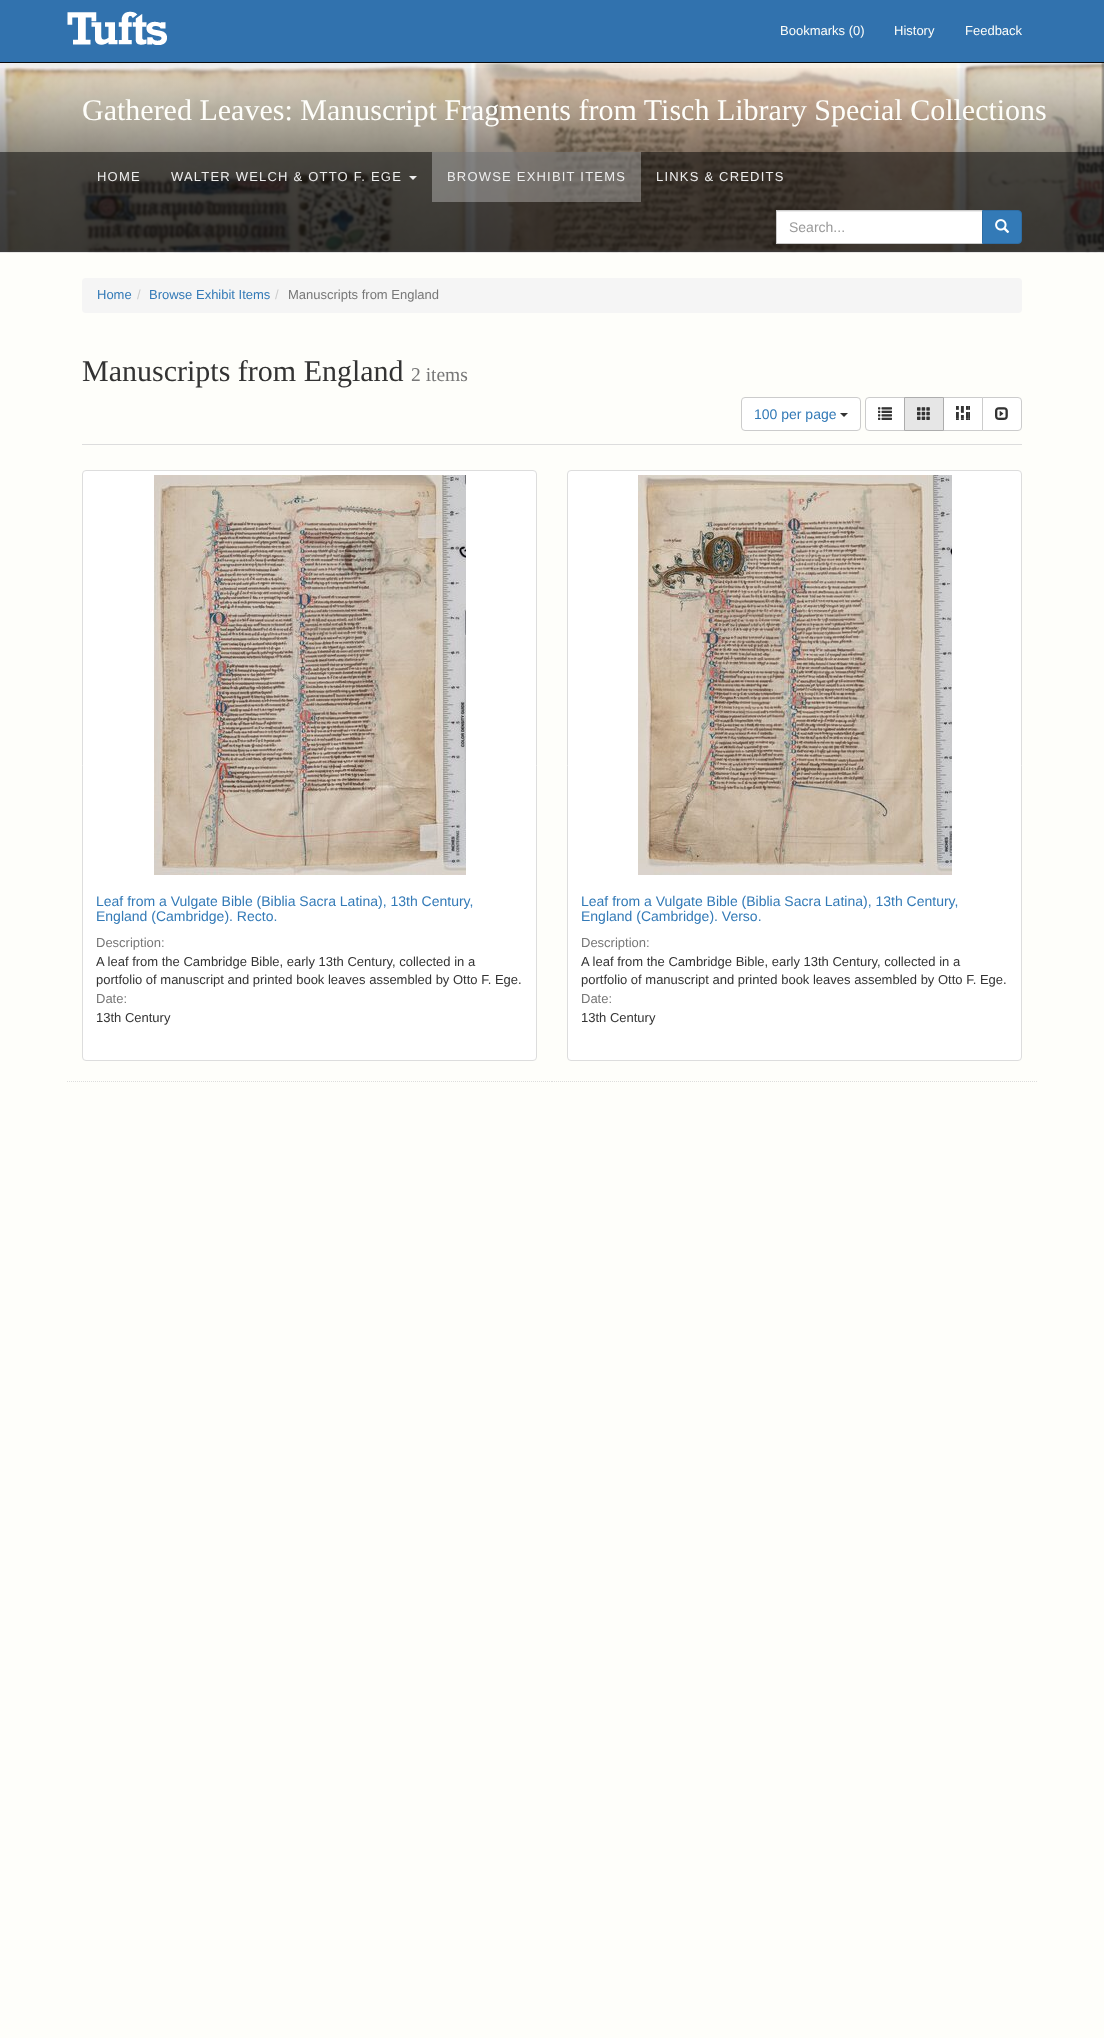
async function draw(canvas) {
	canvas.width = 1104;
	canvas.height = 2038;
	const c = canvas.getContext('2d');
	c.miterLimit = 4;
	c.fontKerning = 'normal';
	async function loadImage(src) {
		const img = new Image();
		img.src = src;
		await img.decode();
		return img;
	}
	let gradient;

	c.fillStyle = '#fefefa';
	c.fillRect(0, 0, 1104, 2038);
	c.fillStyle = '#f5f5f5';
	c.fillRect(0, 63, 1104, 189);
	c.fillStyle = '#e7e7e7';
	c.fillRect(0, 252, 1104, 1);
	c.drawImage(await loadImage('img2.png'), 0, 63, 1104, 190);
	c.fillStyle = '#000';
	c.filter = 'blur(1px)';
	c.beginPath();
	c.rect(1103, 62, 1, 189);
	c.fill();
	c.filter = 'none';
	c.fillStyle = '#3172ae';
	c.fillRect(0, 0, 1104, 62);
	c.fillStyle = '#090909';
	c.fillRect(0, 62, 1104, 1);
	c.drawImage(await loadImage('img1.png'), 67, 11, 100, 34);
	c.font = '13px Liberation Sans';
	c.fillStyle = '#fefefa';
	for (const [text, x, y] of [
		['Bookmarks (0)', 780, 35],
		['History', 894, 35],
		['Feedback', 965, 35],
	]) {
		c.fillText(text, x, y);
	}
	gradient = c.createLinearGradient(552, 63, 552, 252);
	gradient.addColorStop(0, '#00000000');
	gradient.addColorStop(0.5, '#00000066');
	gradient.addColorStop(1, '#00000080');
	c.fillStyle = gradient;
	c.fillRect(0, 68, 1104, 184);
	c.font = '30px Liberation Serif';
	c.fillStyle = '#fefefa';
	c.fillText('Gathered Leaves: Manuscript Fragments from Tisch Library Special Collections', 82, 120);
	c.fillStyle = '#00000080';
	c.fillRect(0, 152, 1104, 100);
	c.letterSpacing = '1.2px';
	c.font = '13px Liberation Sans';
	c.fillStyle = '#eee';
	c.fillText('HOME', 97, 181);
	c.fillText('WALTER WELCH & OTTO F. EGE', 171, 181);
	c.beginPath();
	c.moveTo(409, 176);
	c.lineTo(417, 176);
	c.lineTo(413, 180);
	c.closePath();
	c.fill();
	c.fillStyle = '#ffffff4d';
	c.fillRect(432, 152, 209, 50);
	c.fillStyle = '#eee';
	c.fillText('BROWSE EXHIBIT ITEMS', 447, 181);
	c.fillText('LINKS & CREDITS', 656, 181);
	c.fillStyle = '#fff';
	c.fillRect(777, 212, 205, 31);
	c.fillStyle = '#ececec';
	c.fillRect(777, 211, 205, 1);
	c.strokeStyle = '#ccc';
	c.strokeRect(776.5, 210.5, 206, 33);
	c.letterSpacing = '0px';
	c.font = '14px Liberation Sans';
	c.fillStyle = '#999';
	c.fillText('Search...', 789, 232);
	c.fillStyle = '#337ab7';
	c.beginPath();
	c.roundRect(982.5, 210.5, 39, 33, [0, 3.5, 3.5, 0]);
	c.fill();
	c.strokeStyle = '#2e6da4';
	c.stroke();
	c.drawImage(await loadImage('img3.png'), 995, 219, 15, 14);
	c.fillStyle = '#f5f5f5';
	c.beginPath();
	c.roundRect(82, 278, 940, 35, 4);
	c.fill();
	c.font = '13px Liberation Sans';
	c.fillStyle = '#337ab7';
	c.fillText('Home', 97, 299);
	c.fillStyle = '#ccc';
	c.fillText('/', 137, 299);
	c.fillStyle = '#337ab7';
	c.fillText('Browse Exhibit Items', 149, 299);
	c.fillStyle = '#ccc';
	c.fillText('/', 275, 299);
	c.fillStyle = '#777';
	c.fillText('Manuscripts from England', 288, 299);
	c.font = '30px Liberation Serif';
	c.fillStyle = '#333';
	c.fillText('Manuscripts from England', 82, 381);
	c.font = '19.5px Liberation Serif';
	c.fillStyle = '#777';
	c.fillText('2 items', 411, 381);
	c.fillStyle = '#ddd';
	c.fillRect(82, 444, 940, 1);
	c.fillStyle = '#fff';
	c.beginPath();
	c.roundRect(741.5, 397.5, 119, 33, 3.5);
	c.fill();
	c.strokeStyle = '#ccc';
	c.stroke();
	c.font = '14px Liberation Sans';
	c.fillStyle = '#337ab7';
	c.fillText('100 per page', 754, 419);
	c.fillStyle = '#333';
	c.beginPath();
	c.moveTo(840, 413);
	c.lineTo(848, 413);
	c.lineTo(844, 417);
	c.closePath();
	c.fill();
	c.fillStyle = '#fff';
	c.beginPath();
	c.roundRect(865.5, 397.5, 39, 33, [3.5, 0, 0, 3.5]);
	c.fill();
	c.stroke();
	c.drawImage(await loadImage('img4.png'), 878, 407, 14, 13);
	c.beginPath();
	c.rect(943.5, 397.5, 39, 33);
	c.fill();
	c.stroke();
	c.fillStyle = '#e6e6e6';
	c.beginPath();
	c.rect(904.5, 397.5, 39, 33);
	c.fill();
	c.strokeStyle = '#adadad';
	c.stroke();
	c.drawImage(await loadImage('img5.png'), 917, 407, 13, 13);
	c.drawImage(await loadImage('img6.png'), 956, 406, 14, 14);
	c.fillStyle = '#fff';
	c.beginPath();
	c.roundRect(982.5, 397.5, 39, 33, [0, 3.5, 3.5, 0]);
	c.fill();
	c.strokeStyle = '#ccc';
	c.stroke();
	c.drawImage(await loadImage('img7.png'), 995, 407, 13, 13);
	c.beginPath();
	c.moveTo(67, 1081.5);
	c.lineTo(552, 1081.5);
	c.strokeStyle = '#ddd';
	c.setLineDash([1, 1]);
	c.stroke();
	c.beginPath();
	c.roundRect(82.5, 470.5, 454, 590, 3.5);
	c.fill();
	c.setLineDash([]);
	c.stroke();
	c.drawImage(await loadImage('img8.png'), 154, 475, 312, 400);
	c.fillStyle = '#337ab7';
	c.fillText('Leaf from a Vulgate Bible (Biblia Sacra Latina), 13th Century,', 96, 906);
	c.fillText('England (Cambridge). Recto.', 96, 921);
	c.font = '13px Liberation Sans';
	c.fillStyle = '#777';
	c.fillText('Description:', 96, 947);
	c.fillStyle = '#333';
	c.fillText('A leaf from the Cambridge Bible, early 13th Century, collected in a', 96, 966);
	c.fillText('portfolio of manuscript and printed book leaves assembled by Otto F. Ege.', 96, 984);
	c.fillStyle = '#777';
	c.fillText('Date:', 96, 1003);
	c.fillStyle = '#333';
	c.fillText('13th Century', 96, 1022);
	c.beginPath();
	c.moveTo(552, 1081.5);
	c.lineTo(1037, 1081.5);
	c.setLineDash([1, 1]);
	c.stroke();
	c.fillStyle = '#fff';
	c.beginPath();
	c.roundRect(567.5, 470.5, 454, 590, 3.5);
	c.fill();
	c.setLineDash([]);
	c.stroke();
	c.drawImage(await loadImage('img9.png'), 638, 475, 314, 400);
	c.font = '14px Liberation Sans';
	c.fillStyle = '#337ab7';
	c.fillText('Leaf from a Vulgate Bible (Biblia Sacra Latina), 13th Century,', 581, 906);
	c.fillText('England (Cambridge). Verso.', 581, 921);
	c.font = '13px Liberation Sans';
	c.fillStyle = '#777';
	c.fillText('Description:', 581, 947);
	c.fillStyle = '#333';
	c.fillText('A leaf from the Cambridge Bible, early 13th Century, collected in a', 581, 966);
	c.fillText('portfolio of manuscript and printed book leaves assembled by Otto F. Ege.', 581, 984);
	c.fillStyle = '#777';
	c.fillText('Date:', 581, 1003);
	c.fillStyle = '#333';
	c.fillText('13th Century', 581, 1022);
}

draw(document.querySelector('canvas'));
